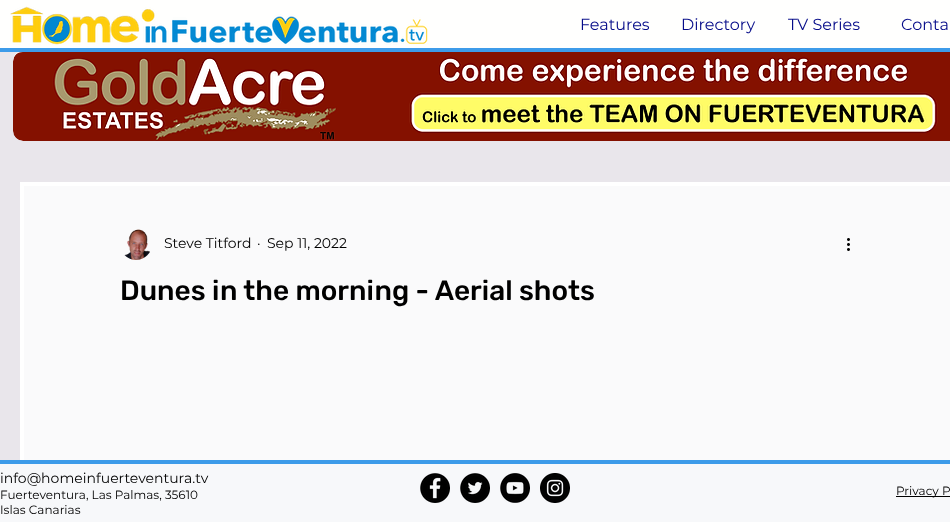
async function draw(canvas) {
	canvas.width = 950;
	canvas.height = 522;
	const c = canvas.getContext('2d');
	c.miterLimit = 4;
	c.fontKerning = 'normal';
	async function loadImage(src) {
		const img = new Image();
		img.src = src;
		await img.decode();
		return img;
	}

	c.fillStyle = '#e9e6eb';
	c.fillRect(0, 0, 950, 522);
	c.fillStyle = '#fffffe';
	c.fillRect(0, 0, 950, 48);
	c.drawImage(await loadImage('img2.png'), 13, 52, 937, 89);
	c.fillStyle = '#ffffffeb';
	c.beginPath();
	c.moveTo(23, 52);
	c.bezierCurveTo(17, 52, 13, 56, 13, 62);
	c.lineTo(13, 61);
	c.bezierCurveTo(13, 55, 17, 51, 23, 51);
	c.lineTo(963, 51);
	c.bezierCurveTo(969, 51, 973, 55, 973, 61);
	c.lineTo(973, 62);
	c.bezierCurveTo(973, 56, 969, 52, 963, 52);
	c.closePath();
	c.fill();
	c.fillStyle = '#3d9be9';
	c.fillRect(0, 48, 950, 4);
	c.drawImage(await loadImage('img1.png'), 10, 6, 418, 39);
	c.font = '16px Montserrat';
	c.fillStyle = '#060c89';
	for (const [text, x, y] of [
		['Features', 580, 30],
		['Directory', 681, 30],
		['TV Series', 788, 30],
		['Conta', 901, 30],
	]) {
		c.fillText(text, x, y);
	}
	c.fillStyle = '#fafafb';
	c.fillRect(24, 186, 926, 274);
	c.strokeStyle = '#fff';
	c.lineWidth = 4;
	c.strokeRect(22, 184, 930, 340);
	c.drawImage(await loadImage('img3.png'), 124, 229, 26, 31);
	c.font = '14px Montserrat';
	c.fillStyle = '#000';
	for (const [text, x, y] of [
		['Steve Titford', 164, 248],
		['·', 257, 248],
		['Sep 11, 2022', 267, 248],
	]) {
		c.fillText(text, x, y);
	}
	c.drawImage(await loadImage('img4.png'), 847, 238, 3, 13);
	c.font = '500 28px Rubik';
	c.fillText('Dunes in the morning - Aerial shots', 120, 300);
	c.fillStyle = '#f7f8fa';
	c.fillRect(0, 464, 950, 58);
	c.fillStyle = '#3d9be9';
	c.fillRect(0, 460, 950, 4);
	c.font = '14px Montserrat';
	c.fillStyle = '#000';
	c.fillText('info@homeinfuerteventura.tv', 0, 483);
	c.font = '12px Montserrat';
	c.fillText('Fuerteventura, Las Palmas, 35610', 0, 499);
	c.fillText('Islas Canarias', 0, 514);
	c.drawImage(await loadImage('img5.png'), 420, 473, 30, 30);
	c.drawImage(await loadImage('img6.png'), 460, 473, 30, 30);
	c.drawImage(await loadImage('img7.png'), 500, 473, 30, 30);
	c.drawImage(await loadImage('img8.png'), 540, 473, 30, 30);
	c.fillRect(896, 496, 54, 1);
	c.fillText('Privacy P', 896, 495);
}

draw(document.querySelector('canvas'));
